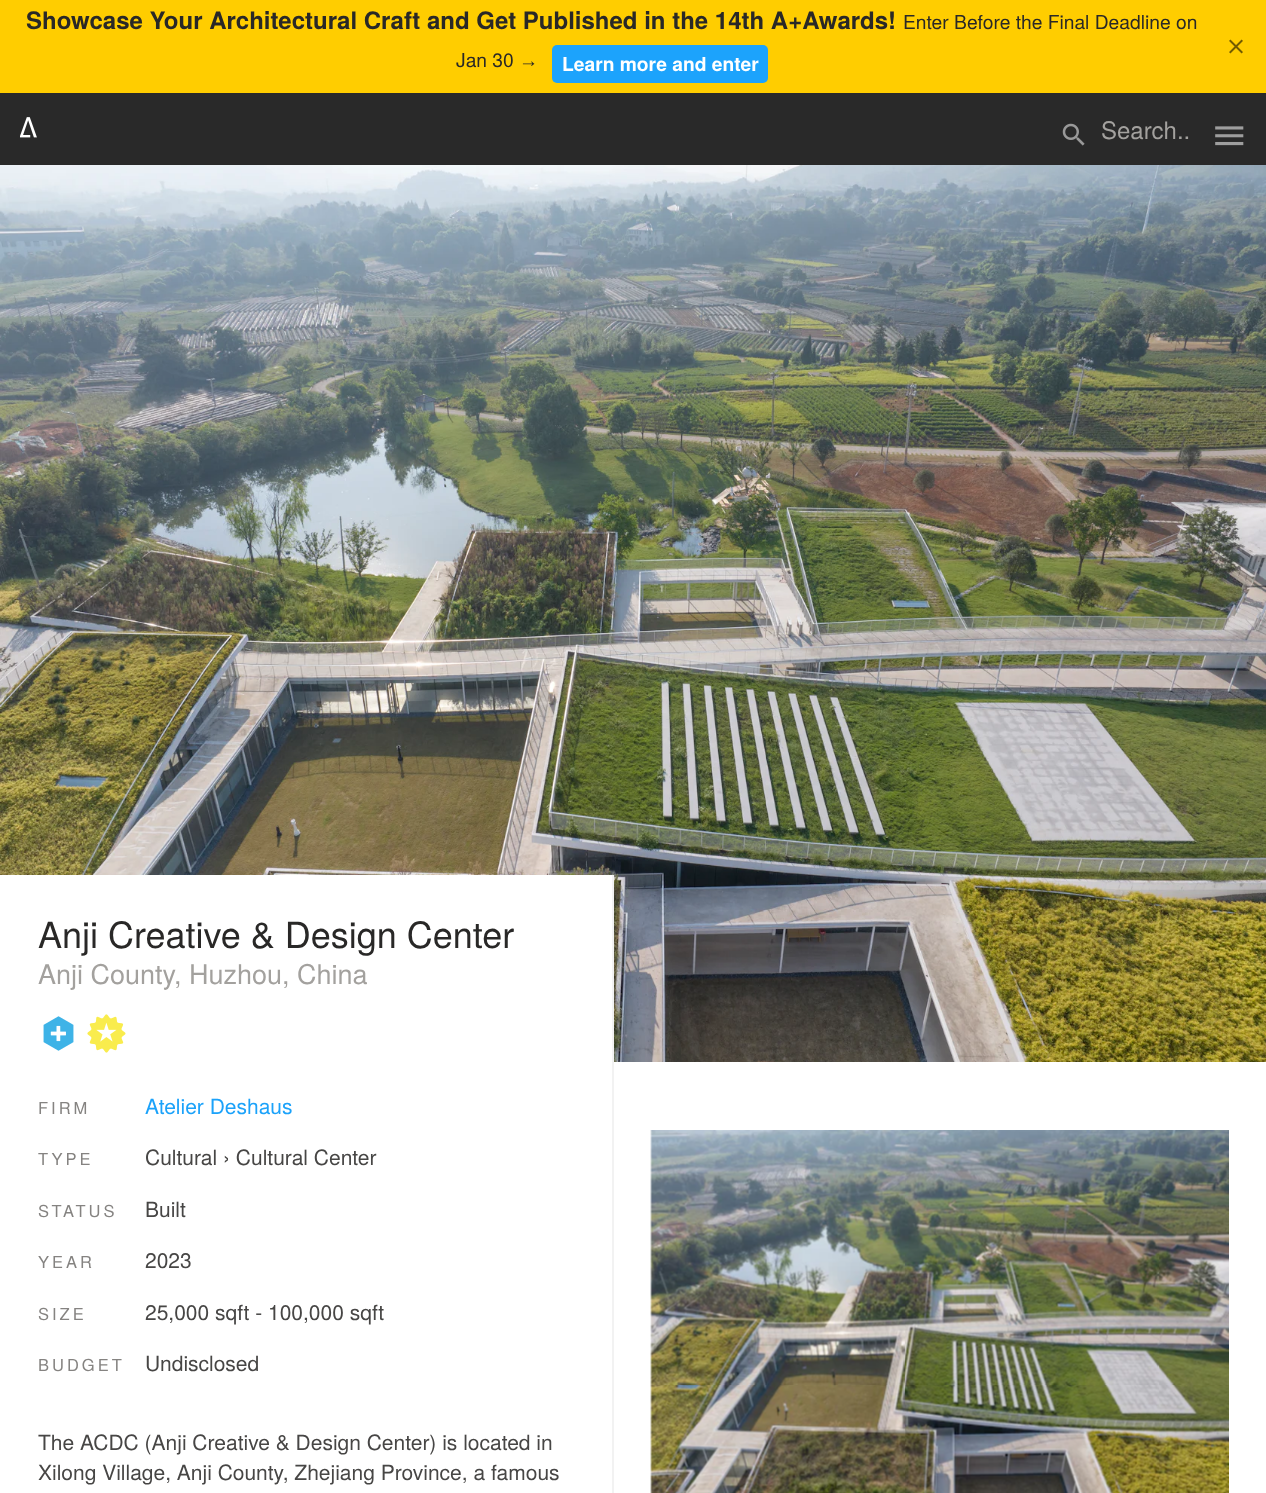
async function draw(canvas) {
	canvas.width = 1266;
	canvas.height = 1493;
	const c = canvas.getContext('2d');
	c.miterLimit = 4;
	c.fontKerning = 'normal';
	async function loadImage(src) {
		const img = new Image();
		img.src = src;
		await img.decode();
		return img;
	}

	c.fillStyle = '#fff';
	c.fillRect(0, 0, 1266, 1493);
	c.fillStyle = '#ffcd00';
	c.fillRect(0, 0, 1266, 93);
	c.font = 'bold 24px TeX Gyre Heros';
	c.fillStyle = '#292827';
	c.fillText('Showcase Your Architectural Craft and Get Published in the 14th A+Awards!', 26, 29);
	c.font = '19.25px TeX Gyre Heros';
	c.fillText('Enter Before the Final Deadline on', 903, 29);
	c.fillText('Jan 30', 456, 67);
	c.font = '19.25px Liberation Sans';
	c.fillText('→', 519, 67);
	c.fillStyle = '#1ca3fc';
	c.beginPath();
	c.roundRect(552, 45, 216, 38, 5);
	c.fill();
	c.font = 'bold 19.25px TeX Gyre Heros';
	c.fillStyle = '#fff';
	c.fillText('Learn more and enter', 562, 71);
	c.drawImage(await loadImage('img1.png'), 1229, 39, 14, 15);
	c.fillStyle = '#292929';
	c.fillRect(0, 93, 1266, 72);
	c.drawImage(await loadImage('img2.png'), 20, 117, 17, 21);
	c.drawImage(await loadImage('img3.png'), 1062, 123, 23, 23);
	c.font = '24px TeX Gyre Heros';
	c.fillStyle = '#a3a19e';
	c.fillText('Search..', 1101, 139);
	c.drawImage(await loadImage('img4.png'), 1215, 126, 29, 20);
	c.drawImage(await loadImage('img5.png'), 0, 165, 1266, 897);
	c.fillStyle = '#fff';
	c.fillRect(0, 875, 612, 187);
	c.fillStyle = '#f2f2f2';
	c.fillRect(612, 875, 2, 618);
	c.font = '36px TeX Gyre Heros';
	c.fillStyle = '#292827';
	c.fillText('Anji Creative & Design Center', 38, 948);
	c.font = '27px TeX Gyre Heros';
	c.fillStyle = '#a3a19e';
	c.fillText('Anji County, Huzhou, China', 38, 984);
	c.drawImage(await loadImage('img6.png'), 43, 1016, 31, 35);
	c.drawImage(await loadImage('img7.png'), 87, 1014, 39, 39);
	c.letterSpacing = '3px';
	c.font = '16.5px TeX Gyre Heros';
	c.fillStyle = '#858381';
	c.fillText('FIRM', 38, 1114);
	c.letterSpacing = '0px';
	c.font = '21px TeX Gyre Heros';
	c.fillStyle = '#1ba2fa';
	c.fillText('Atelier Deshaus', 145, 1114);
	c.letterSpacing = '3px';
	c.font = '16.5px TeX Gyre Heros';
	c.fillStyle = '#858381';
	c.fillText('TYPE', 38, 1165);
	c.letterSpacing = '0px';
	c.font = '21px TeX Gyre Heros';
	c.fillStyle = '#474645';
	c.fillText('Cultural › Cultural Center', 145, 1165);
	c.letterSpacing = '3px';
	c.font = '16.5px TeX Gyre Heros';
	c.fillStyle = '#858381';
	c.fillText('STATUS', 38, 1217);
	c.letterSpacing = '0px';
	c.font = '21px TeX Gyre Heros';
	c.fillStyle = '#474645';
	c.fillText('Built', 145, 1217);
	c.letterSpacing = '3px';
	c.font = '16.5px TeX Gyre Heros';
	c.fillStyle = '#858381';
	c.fillText('YEAR', 38, 1268);
	c.letterSpacing = '0px';
	c.font = '21px TeX Gyre Heros';
	c.fillStyle = '#474645';
	c.fillText('2023', 145, 1268);
	c.letterSpacing = '3px';
	c.font = '16.5px TeX Gyre Heros';
	c.fillStyle = '#858381';
	c.fillText('SIZE', 38, 1320);
	c.letterSpacing = '0px';
	c.font = '21px TeX Gyre Heros';
	c.fillStyle = '#474645';
	c.fillText('25,000 sqft - 100,000 sqft', 145, 1320);
	c.letterSpacing = '3px';
	c.font = '16.5px TeX Gyre Heros';
	c.fillStyle = '#858381';
	c.fillText('BUDGET', 38, 1371);
	c.letterSpacing = '0px';
	c.font = '21px TeX Gyre Heros';
	c.fillStyle = '#474645';
	for (const [text, x, y] of [
		['Undisclosed', 145, 1371],
		['The ACDC (Anji Creative & Design Center) is located in', 38, 1450],
		['Xilong Village, Anji County, Zhejiang Province, a famous', 38, 1480],
	]) {
		c.fillText(text, x, y);
	}
	c.drawImage(await loadImage('img8.png'), 651, 1130, 1, 363);
	c.drawImage(await loadImage('img9.png'), 650, 1130, 579, 363);
}

draw(document.querySelector('canvas'));
